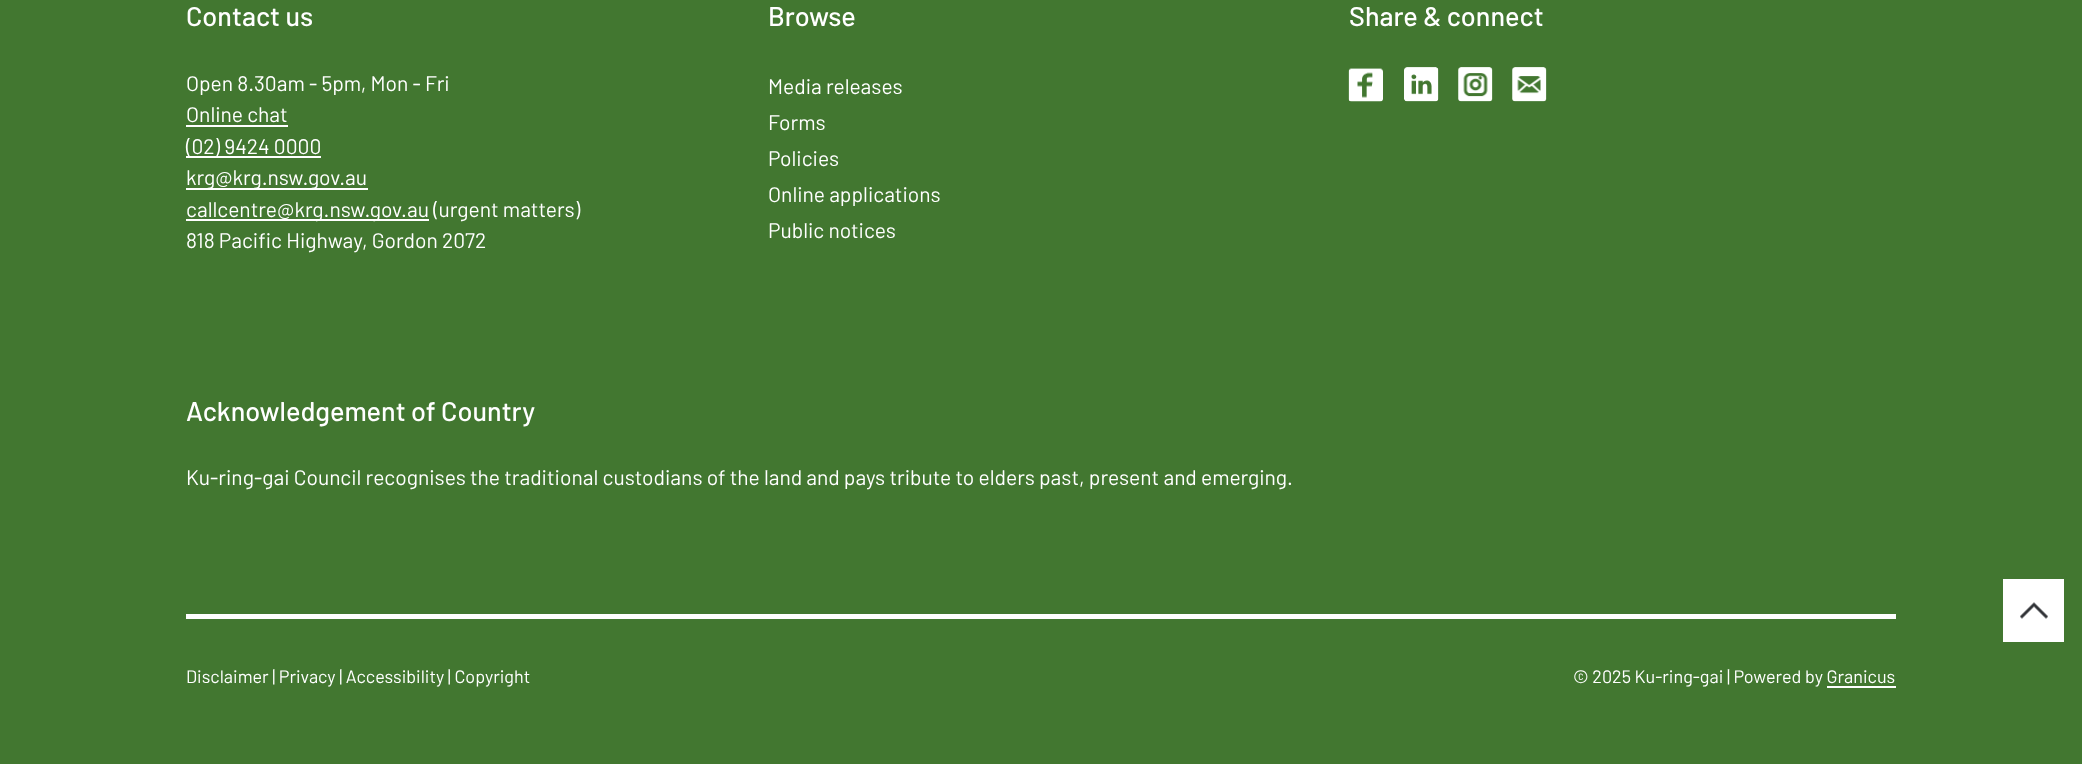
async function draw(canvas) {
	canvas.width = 2082;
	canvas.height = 764;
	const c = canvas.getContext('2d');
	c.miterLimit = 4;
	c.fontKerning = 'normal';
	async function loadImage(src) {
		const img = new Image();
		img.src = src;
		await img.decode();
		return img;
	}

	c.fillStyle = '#427730';
	c.fillRect(0, 0, 2082, 764);
	c.font = '500 27px Barlow';
	c.fillStyle = '#fff';
	c.fillText('Contact us', 186, 26);
	c.font = '21px Barlow';
	c.fillText('Open 8.30am - 5pm, Mon - Fri', 186, 91);
	c.fillText('Online chat', 186, 122);
	c.fillRect(186, 125, 102, 2);
	c.fillRect(186, 156, 135, 2);
	c.fillText('(02) 9424 0000', 186, 154);
	c.fillRect(186, 188, 182, 2);
	c.fillText('krg@krg.nsw.gov.au', 186, 185);
	c.fillRect(186, 219, 243, 2);
	c.fillText('callcentre@krg.nsw.gov.au (urgent matters)', 186, 217);
	c.fillText('818 Pacific Highway, Gordon 2072', 186, 248);
	c.font = '500 27px Barlow';
	c.fillText('Browse', 768, 26);
	c.font = '21px Barlow';
	for (const [text, x, y] of [
		['Media releases', 768, 94],
		['Forms', 768, 130],
		['Policies', 768, 166],
		['Online applications', 768, 202],
		['Public notices', 768, 238],
	]) {
		c.fillText(text, x, y);
	}
	c.font = '500 27px Barlow';
	c.fillText('Share & connect', 1349, 26);
	c.drawImage(await loadImage('img1.png'), 1348, 68, 35, 34);
	c.drawImage(await loadImage('img2.png'), 1404, 67, 35, 35);
	c.drawImage(await loadImage('img3.png'), 1458, 67, 35, 35);
	c.drawImage(await loadImage('img4.png'), 1512, 67, 35, 35);
	c.fillText('Acknowledgement of Country', 186, 421);
	c.font = '21px Barlow';
	c.fillText('Ku-ring-gai Council recognises the traditional custodians of the land and pays tribute to elders past, present and emerging.', 186, 485);
	c.fillRect(186, 614, 1710, 5);
	c.font = '18px Barlow';
	c.fillText('Disclaimer | Privacy | Accessibility | Copyright', 186, 683);
	c.fillText('© 2025 Ku-ring-gai | Powered by Granicus', 1573, 683);
	c.fillRect(1827, 686, 69, 2);
	c.beginPath();
	c.roundRect(2001.5, 577.5, 64, 66, 1.5);
	c.fill();
	c.strokeStyle = '#427730';
	c.lineWidth = 3;
	c.stroke();
	c.drawImage(await loadImage('img5.png'), 2020, 602, 28, 17);
}

draw(document.querySelector('canvas'));
